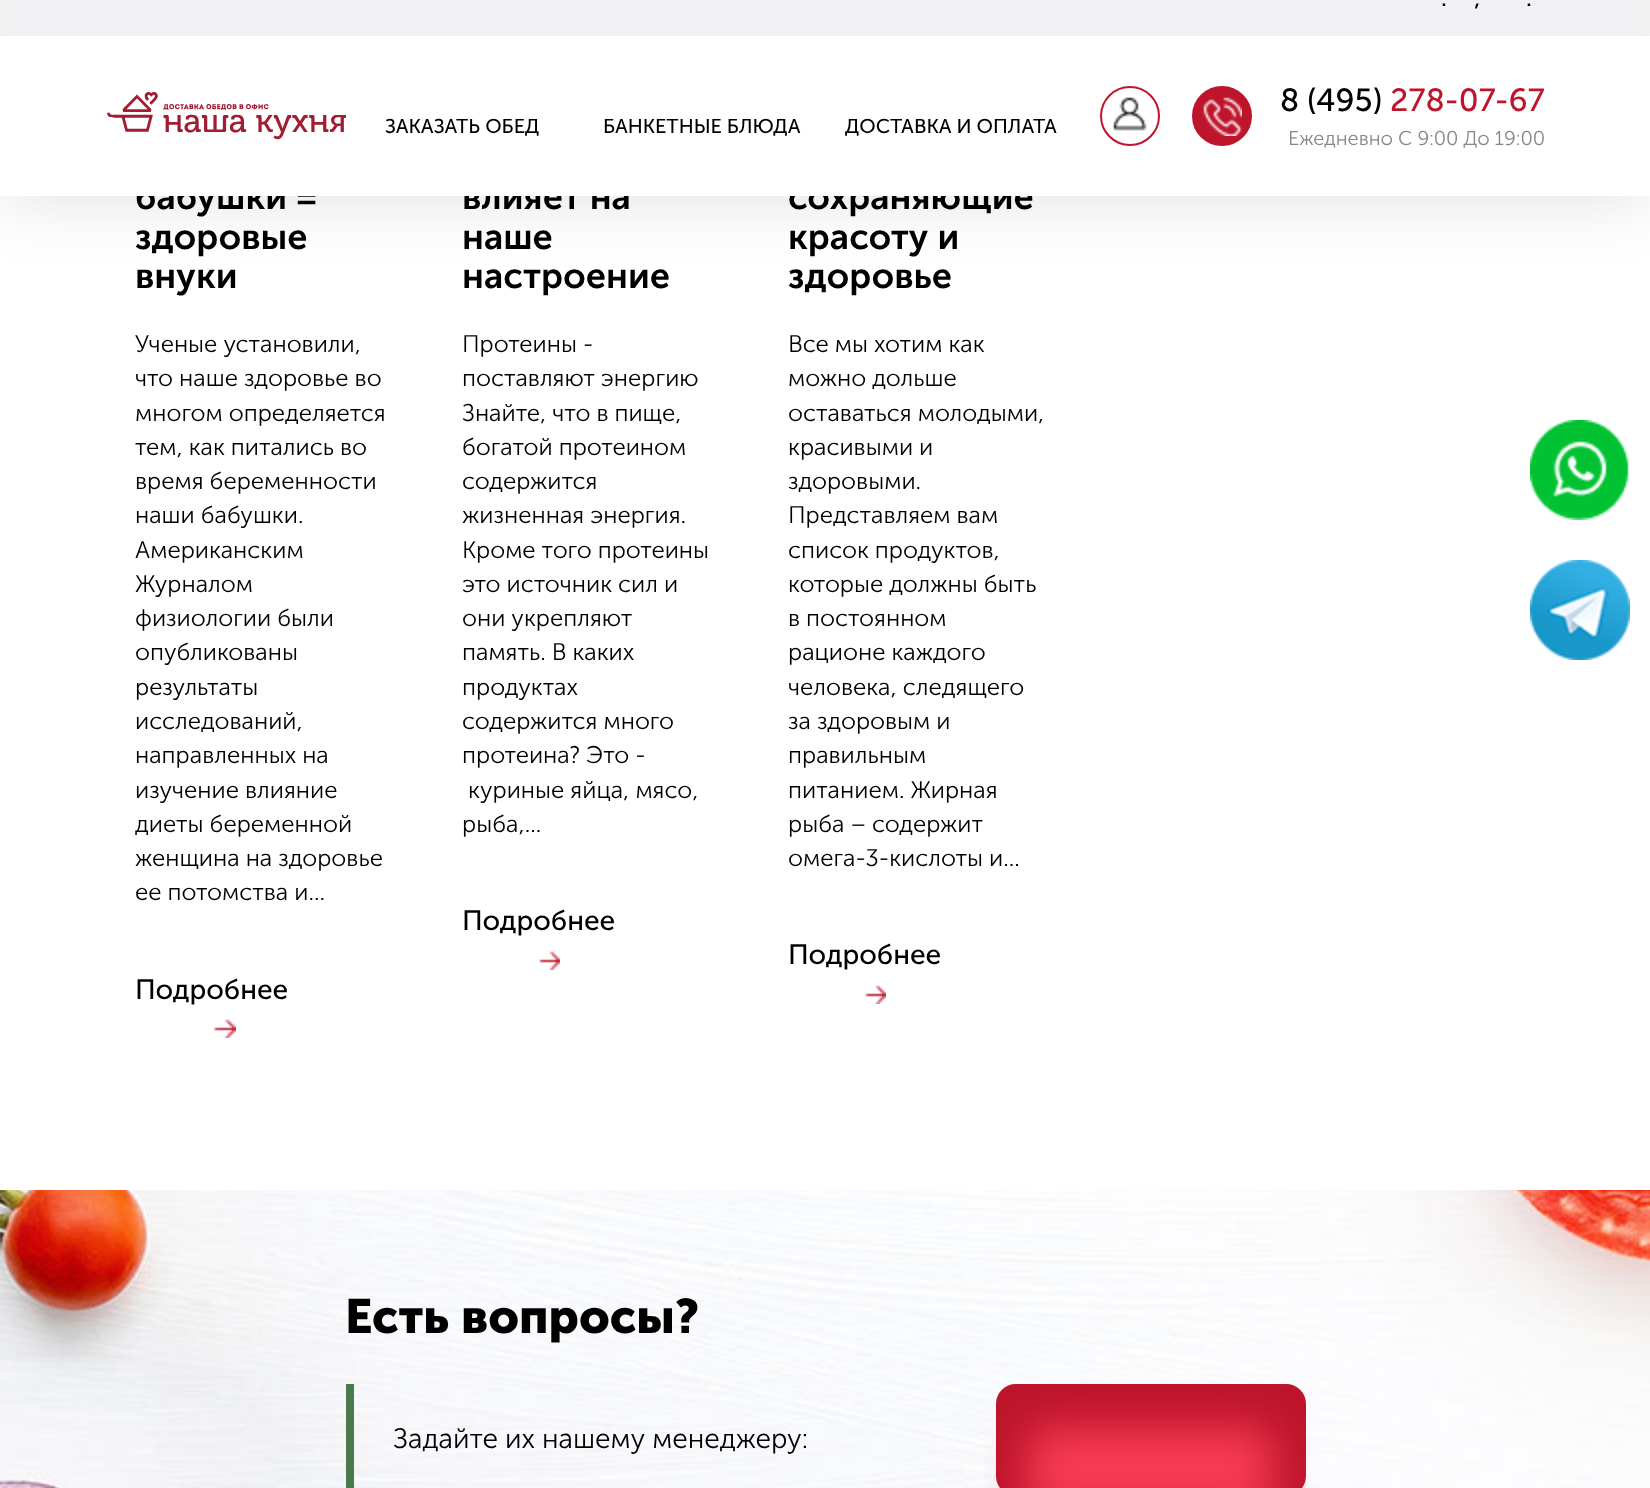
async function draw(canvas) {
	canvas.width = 1650;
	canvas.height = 1488;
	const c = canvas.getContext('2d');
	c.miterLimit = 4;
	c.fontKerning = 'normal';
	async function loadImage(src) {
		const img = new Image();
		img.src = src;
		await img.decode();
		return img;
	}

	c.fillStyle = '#fff';
	c.fillRect(0, 0, 1650, 1488);
	c.fillStyle = '#0000001a';
	c.filter = 'blur(31px)';
	c.beginPath();
	c.rect(0, -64, 1650, 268);
	c.fill();
	c.filter = 'none';
	c.font = '600 36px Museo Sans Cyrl';
	c.fillStyle = '#000';
	for (const [text, x, y] of [
		['бабушки =', 135, 209],
		['влияет на', 462, 209],
		['сохраняющие', 788, 209],
	]) {
		c.fillText(text, x, y);
	}
	c.fillStyle = '#fff';
	c.fillRect(0, 36, 1650, 160);
	c.fillStyle = '#f1f1f3';
	c.fillRect(6, 0, 1638, 36);
	c.font = '24px Museo Sans Cyrl';
	c.fillStyle = '#000';
	for (const [text, x, y] of [
		['.', 1441, 6],
		[',', 1474, 6],
		['.', 1526, 6],
	]) {
		c.fillText(text, x, y);
	}
	c.drawImage(await loadImage('img1.png'), 107, 92, 239, 48);
	c.font = '20px Museo Sans Cyrl';
	for (const [text, x, y] of [
		['ЗАКАЗАТЬ ОБЕД', 385, 133],
		['БАНКЕТНЫЕ БЛЮДА', 603, 133],
		['ДОСТАВКА И ОПЛАТА', 845, 133],
	]) {
		c.fillText(text, x, y);
	}
	c.beginPath();
	c.arc(1130, 116, 29, 0, 2 * Math.PI);
	c.strokeStyle = '#be152c';
	c.lineWidth = 2;
	c.stroke();
	c.drawImage(await loadImage('img2.png'), 1113, 97, 34, 34);
	c.fillStyle = '#be152c';
	c.beginPath();
	c.arc(1222, 116, 29, 0, 2 * Math.PI);
	c.fill();
	c.stroke();
	c.drawImage(await loadImage('img3.png'), 1203, 97, 39, 39);
	c.font = '32px Museo Sans Cyrl';
	c.fillStyle = '#000';
	c.fillText('8 (', 1280, 111);
	c.fillText('495)', 1316, 111);
	c.fillStyle = '#be152c';
	c.fillText('278-07-67', 1390, 111);
	c.font = '300 20px Museo Sans Cyrl';
	c.fillStyle = '#878787';
	c.fillText('Ежедневно С 9:00 До 19:00', 1288, 145);
	c.font = '600 36px Museo Sans Cyrl';
	c.fillStyle = '#000';
	c.fillText('здоровые', 135, 249);
	c.fillText('внуки', 135, 288);
	c.font = '300 24px Museo Sans Cyrl';
	for (const [text, x, y] of [
		['Ученые установили,', 135, 352],
		['что наше здоровье во', 135, 386],
		['многом определяется', 135, 421],
		['тем, как питались во', 135, 455],
		['время беременности', 135, 489],
		['наши бабушки.', 135, 523],
		['Американским', 135, 558],
		['Журналом', 135, 592],
		['физиологии были', 135, 626],
		['опубликованы', 135, 660],
		['результаты', 135, 695],
		['исследований,', 135, 729],
		['направленных на', 135, 763],
		['изучение влияние', 135, 798],
		['диеты беременной', 135, 832],
		['женщина на здоровье', 135, 866],
		['ее потомства и...', 135, 900],
	]) {
		c.fillText(text, x, y);
	}
	c.font = '28px Museo Sans Cyrl';
	c.fillText('Подробнее', 135, 999);
	c.drawImage(await loadImage('img4.png'), 214, 1019, 22, 19);
	c.font = '600 36px Museo Sans Cyrl';
	c.fillText('наше', 462, 249);
	c.fillText('настроение', 462, 288);
	c.font = '300 24px Museo Sans Cyrl';
	for (const [text, x, y] of [
		['Протеины -', 462, 352],
		['поставляют энергию', 462, 386],
		['Знайте, что в пище,', 462, 421],
		['богатой протеином', 462, 455],
		['содержится', 462, 489],
		['жизненная энергия.', 462, 523],
		['Кроме того протеины', 462, 558],
		['это источник сил и', 462, 592],
		['они укрепляют', 462, 626],
		['память. В каких', 462, 660],
		['продуктах', 462, 695],
		['содержится много', 462, 729],
		['протеина? Это -', 462, 763],
		['куриные яйца, мясо,', 468, 798],
		['рыба,...', 462, 832],
	]) {
		c.fillText(text, x, y);
	}
	c.font = '28px Museo Sans Cyrl';
	c.fillText('Подробнее', 462, 930);
	c.drawImage(await loadImage('img5.png'), 539, 951, 21, 19);
	c.font = '600 36px Museo Sans Cyrl';
	c.fillText('красоту и', 788, 249);
	c.fillText('здоровье', 788, 288);
	c.font = '300 24px Museo Sans Cyrl';
	for (const [text, x, y] of [
		['Все мы хотим как', 788, 352],
		['можно дольше', 788, 386],
		['оставаться молодыми,', 788, 421],
		['красивыми и', 788, 455],
		['здоровыми.', 788, 489],
		['Представляем вам', 788, 523],
		['список продуктов,', 788, 558],
		['которые должны быть', 788, 592],
		['в постоянном', 788, 626],
		['рационе каждого', 788, 660],
		['человека, следящего', 788, 695],
		['за здоровым и', 788, 729],
		['правильным', 788, 763],
		['питанием. Жирная', 788, 798],
		['рыба – содержит', 788, 832],
		['омега-3-кислоты и...', 788, 866],
	]) {
		c.fillText(text, x, y);
	}
	c.font = '28px Museo Sans Cyrl';
	c.fillText('Подробнее', 788, 964);
	c.drawImage(await loadImage('img5.png'), 865, 985, 21, 19);
	c.drawImage(await loadImage('img6.png'), 0, 1190, 1650, 298);
	c.font = 'bold 48px Museo Sans Cyrl';
	c.fillText('Есть вопросы?', 345, 1333);
	c.fillStyle = '#487a4c';
	c.fillRect(346, 1384, 8, 104);
	c.font = '300 28px Museo Sans Cyrl';
	c.fillStyle = '#000';
	c.fillText('Задайте их нашему менеджеру:', 393, 1448);
	c.fillStyle = '#be152c';
	c.beginPath();
	c.roundRect(997, 1385, 308, 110, 19);
	c.fill();
	c.stroke();
	c.fillStyle = '#f83a54';
	c.filter = 'blur(20px)';
	c.beginPath();
	c.roundRect(1028, 1428, 244, 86, 20);
	c.fill();
	c.filter = 'none';
	c.drawImage(await loadImage('img7.png'), 1530, 420, 99, 100);
	c.drawImage(await loadImage('img8.png'), 1530, 560, 100, 100);
}

draw(document.querySelector('canvas'));
